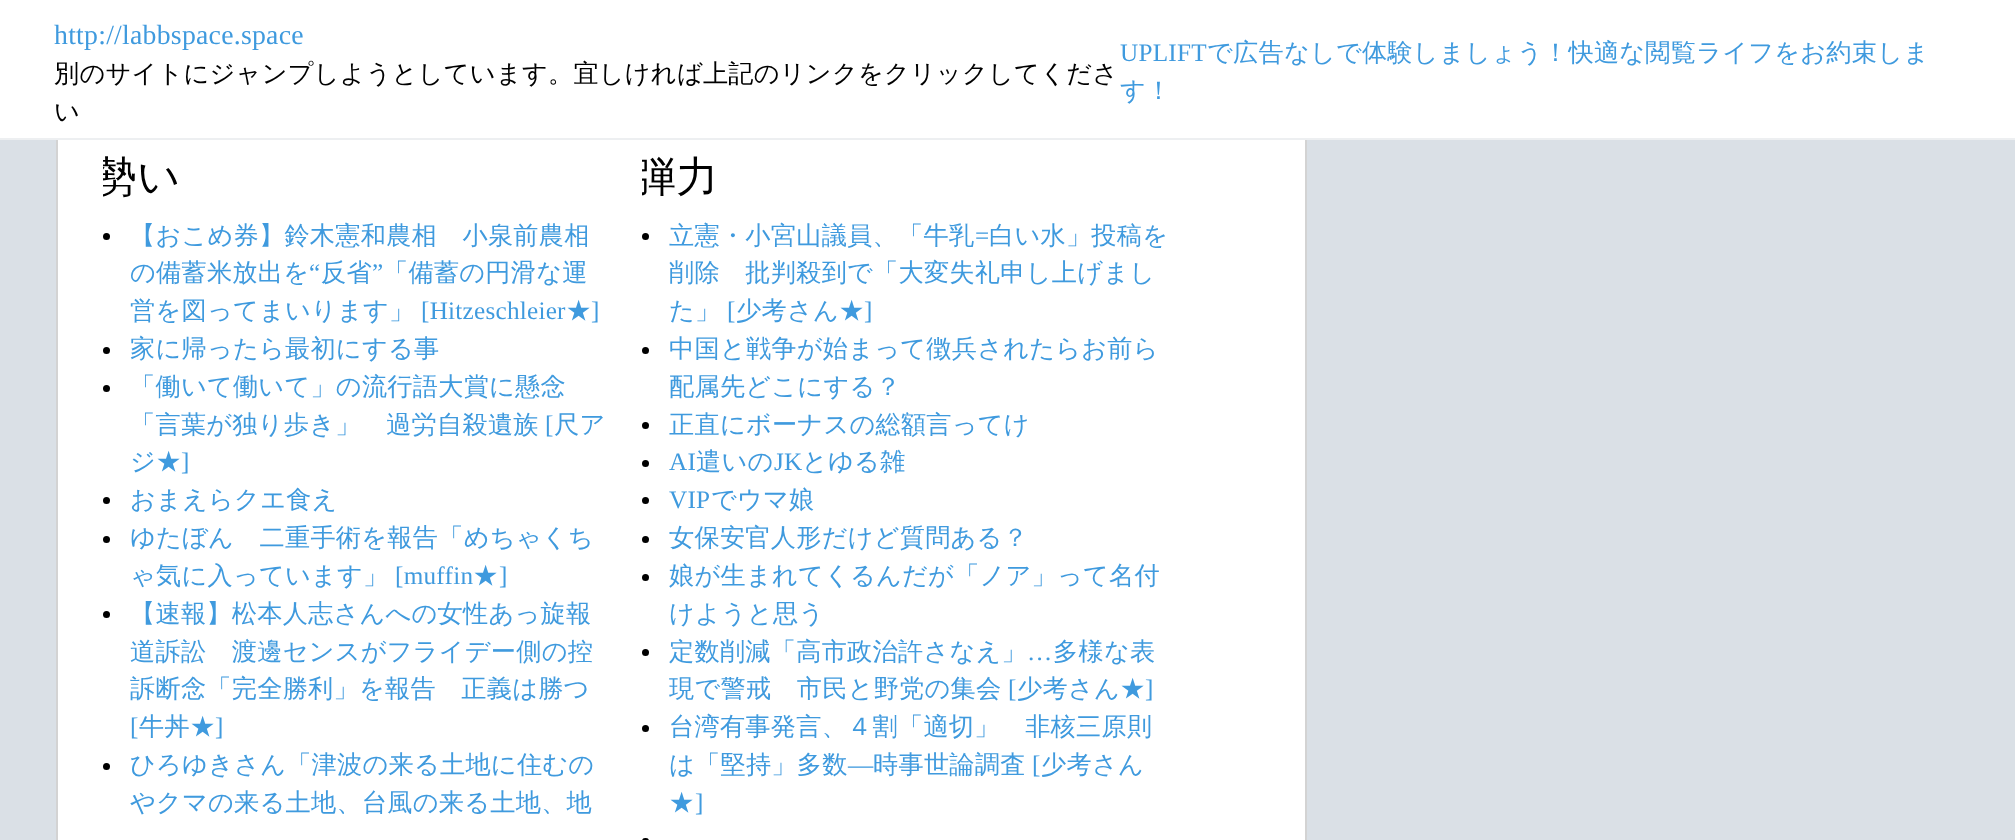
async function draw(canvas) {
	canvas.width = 2015;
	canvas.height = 840;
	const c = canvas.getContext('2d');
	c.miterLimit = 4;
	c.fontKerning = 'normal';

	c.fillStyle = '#dae0e6';
	c.fillRect(0, 0, 2015, 840);
	c.fillStyle = '#fff';
	c.fillRect(58, 140, 1247, 700);
	c.strokeStyle = '#d3d3d3';
	c.lineWidth = 2;
	c.strokeRect(57, 124, 1249, 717);
	c.fillRect(0, 0, 2015, 138);
	c.fillStyle = '#edeff1';
	c.fillRect(0, 138, 2015, 2);
	c.letterSpacing = '0.25px';
	c.font = '27.75px Liberation Serif';
	c.fillStyle = '#3f9ade';
	c.fillText('http://labbspace.space', 54, 44);
	c.font = '500 25.2px WenQuanYi Zen Hei';
	c.fillStyle = '#000';
	c.fillText('別のサイトにジャンプしようとしています。宜しければ上記のリンクをクリックしてくださ', 54, 82);
	c.fillText('い', 54, 120);
	c.font = '25.2px Liberation Serif';
	c.fillStyle = '#3f9ade';
	c.fillText('UPLIFT', 1120, 61);
	c.font = '500 25.2px WenQuanYi Zen Hei';
	c.fillText('で広告なしで体験しましょう！快適な閲覧ライフをお約束しま', 1207, 61);
	c.fillText('す！', 1120, 99);
	c.save();
	c.beginPath();
	c.rect(103, 100, 503, 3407);
	c.clip();
	c.font = '500 42px WenQuanYi Zen Hei';
	c.fillStyle = '#000';
	c.fillText('勢い', 95, 191);
	c.restore();
	c.fillStyle = '#000';
	c.beginPath();
	c.arc(106.5, 236.5, 3.5, 0, 2 * Math.PI);
	c.fill();
	c.fillStyle = '#3f9ade';
	c.fillText('【おこめ券】鈴木憲和農相　小泉前農相', 130, 244);
	c.fillText('の備蓄米放出を', 130, 281);
	c.font = '25.2px Liberation Serif';
	c.fillText('“', 309, 281);
	c.font = '500 25.2px WenQuanYi Zen Hei';
	c.fillText('反省', 321, 281);
	c.font = '25.2px Liberation Serif';
	c.fillText('”', 372, 281);
	c.font = '500 25.2px WenQuanYi Zen Hei';
	c.fillText('「備蓄の円滑な運', 383, 281);
	c.fillText('営を図ってまいります」', 130, 319);
	c.font = '25.2px Liberation Serif';
	c.fillText('[Hitzeschleier', 421, 319);
	c.font = '500 25.2px WenQuanYi Zen Hei';
	c.fillText('★', 566, 319);
	c.font = '25.2px Liberation Serif';
	c.fillText(']', 591, 319);
	c.fillStyle = '#000';
	c.beginPath();
	c.arc(106.5, 350.5, 3.5, 0, 2 * Math.PI);
	c.fill();
	c.font = '500 25.2px WenQuanYi Zen Hei';
	c.fillStyle = '#3f9ade';
	c.fillText('家に帰ったら最初にする事', 130, 357);
	c.fillStyle = '#000';
	c.beginPath();
	c.arc(106.5, 388.5, 3.5, 0, 2 * Math.PI);
	c.fill();
	c.fillStyle = '#3f9ade';
	c.fillText('「働いて働いて」の流行語大賞に懸念', 130, 395);
	c.fillText('「言葉が独り歩き」　過労自殺遺族', 130, 433);
	c.font = '25.2px Liberation Serif';
	c.fillText('[', 545, 433);
	c.font = '500 25.2px WenQuanYi Zen Hei';
	c.fillText('尺ア', 554, 433);
	c.fillText('ジ★', 130, 470);
	c.font = '25.2px Liberation Serif';
	c.fillText(']', 181, 470);
	c.fillStyle = '#000';
	c.beginPath();
	c.arc(106.5, 500.5, 3.5, 0, 2 * Math.PI);
	c.fill();
	c.font = '500 25.2px WenQuanYi Zen Hei';
	c.fillStyle = '#3f9ade';
	c.fillText('おまえらクエ食え', 130, 508);
	c.fillStyle = '#000';
	c.beginPath();
	c.arc(106.5, 539.5, 3.5, 0, 2 * Math.PI);
	c.fill();
	c.fillStyle = '#3f9ade';
	c.fillText('ゆたぼん　二重手術を報告「めちゃくち', 130, 546);
	c.fillText('ゃ気に入っています」', 130, 584);
	c.font = '25.2px Liberation Serif';
	c.fillText('[muffin', 395, 584);
	c.font = '500 25.2px WenQuanYi Zen Hei';
	c.fillText('★', 473, 584);
	c.font = '25.2px Liberation Serif';
	c.fillText(']', 499, 584);
	c.fillStyle = '#000';
	c.beginPath();
	c.arc(106.5, 614.5, 3.5, 0, 2 * Math.PI);
	c.fill();
	c.font = '500 25.2px WenQuanYi Zen Hei';
	c.fillStyle = '#3f9ade';
	for (const [text, x, y] of [
		['【速報】松本人志さんへの女性あっ旋報', 130, 622],
		['道訴訟　渡邊センスがフライデー側の控', 130, 660],
		['訴断念「完全勝利」を報告　正義は勝つ', 130, 697],
	]) {
		c.fillText(text, x, y);
	}
	c.font = '25.2px Liberation Serif';
	c.fillText('[', 130, 735);
	c.font = '500 25.2px WenQuanYi Zen Hei';
	c.fillText('牛丼★', 139, 735);
	c.font = '25.2px Liberation Serif';
	c.fillText(']', 215, 735);
	c.fillStyle = '#000';
	c.beginPath();
	c.arc(106.5, 766.5, 3.5, 0, 2 * Math.PI);
	c.fill();
	c.font = '500 25.2px WenQuanYi Zen Hei';
	c.fillStyle = '#3f9ade';
	c.fillText('ひろゆきさん「津波の来る土地に住むの', 130, 773);
	c.fillText('やクマの来る土地、台風の来る土地、地', 130, 811);
	c.save();
	c.beginPath();
	c.rect(642, 100, 532, 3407);
	c.clip();
	c.font = '500 42px WenQuanYi Zen Hei';
	c.fillStyle = '#000';
	c.fillText('弾力', 634, 191);
	c.restore();
	c.fillStyle = '#000';
	c.beginPath();
	c.arc(645.5, 236.5, 3.5, 0, 2 * Math.PI);
	c.fill();
	c.fillStyle = '#3f9ade';
	c.fillText('立憲・小宮山議員、「牛乳', 669, 244);
	c.font = '25.2px Liberation Serif';
	c.fillText('=', 975, 244);
	c.font = '500 25.2px WenQuanYi Zen Hei';
	for (const [text, x, y] of [
		['白い水」投稿を', 989, 244],
		['削除　批判殺到で「大変失礼申し上げまし', 669, 281],
		['た」', 669, 319],
	]) {
		c.fillText(text, x, y);
	}
	c.font = '25.2px Liberation Serif';
	c.fillText('[', 727, 319);
	c.font = '500 25.2px WenQuanYi Zen Hei';
	c.fillText('少考さん★', 736, 319);
	c.font = '25.2px Liberation Serif';
	c.fillText(']', 864, 319);
	c.fillStyle = '#000';
	c.beginPath();
	c.arc(645.5, 350.5, 3.5, 0, 2 * Math.PI);
	c.fill();
	c.font = '500 25.2px WenQuanYi Zen Hei';
	c.fillStyle = '#3f9ade';
	c.fillText('中国と戦争が始まって徴兵されたらお前ら', 669, 357);
	c.fillText('配属先どこにする？', 669, 395);
	c.fillStyle = '#000';
	c.beginPath();
	c.arc(645.5, 425.5, 3.5, 0, 2 * Math.PI);
	c.fill();
	c.fillStyle = '#3f9ade';
	c.fillText('正直にボーナスの総額言ってけ', 669, 433);
	c.fillStyle = '#000';
	c.beginPath();
	c.arc(645.5, 463.5, 3.5, 0, 2 * Math.PI);
	c.fill();
	c.font = '25.2px Liberation Serif';
	c.fillStyle = '#3f9ade';
	c.fillText('AI', 669, 470);
	c.font = '500 25.2px WenQuanYi Zen Hei';
	c.fillText('遣いの', 696, 470);
	c.font = '25.2px Liberation Serif';
	c.fillText('JK', 774, 470);
	c.font = '500 25.2px WenQuanYi Zen Hei';
	c.fillText('とゆる雑', 802, 470);
	c.fillStyle = '#000';
	c.beginPath();
	c.arc(645.5, 500.5, 3.5, 0, 2 * Math.PI);
	c.fill();
	c.font = '25.2px Liberation Serif';
	c.fillStyle = '#3f9ade';
	c.fillText('VIP', 669, 508);
	c.font = '500 25.2px WenQuanYi Zen Hei';
	c.fillText('でウマ娘', 711, 508);
	c.fillStyle = '#000';
	c.beginPath();
	c.arc(645.5, 539.5, 3.5, 0, 2 * Math.PI);
	c.fill();
	c.fillStyle = '#3f9ade';
	c.fillText('女保安官人形だけど質問ある？', 669, 546);
	c.fillStyle = '#000';
	c.beginPath();
	c.arc(645.5, 577.5, 3.5, 0, 2 * Math.PI);
	c.fill();
	c.fillStyle = '#3f9ade';
	c.fillText('娘が生まれてくるんだが「ノア」って名付', 669, 584);
	c.fillText('けようと思う', 669, 622);
	c.fillStyle = '#000';
	c.beginPath();
	c.arc(645.5, 652.5, 3.5, 0, 2 * Math.PI);
	c.fill();
	c.fillStyle = '#3f9ade';
	c.fillText('定数削減「高市政治許さなえ」', 669, 660);
	c.fillText('多様な表', 1053, 660);
	c.font = '25.2px Liberation Serif';
	c.fillText('…', 1027, 660);
	c.font = '500 25.2px WenQuanYi Zen Hei';
	c.fillText('現で警戒　市民と野党の集会', 669, 697);
	c.font = '25.2px Liberation Serif';
	c.fillText('[', 1008, 697);
	c.font = '500 25.2px WenQuanYi Zen Hei';
	c.fillText('少考さん★', 1017, 697);
	c.font = '25.2px Liberation Serif';
	c.fillText(']', 1145, 697);
	c.fillStyle = '#000';
	c.beginPath();
	c.arc(645.5, 728.5, 3.5, 0, 2 * Math.PI);
	c.fill();
	c.font = '500 25.2px WenQuanYi Zen Hei';
	c.fillStyle = '#3f9ade';
	c.fillText('台湾有事発言、４割「適切」　非核三原則', 669, 735);
	c.fillText('は「堅持」多数', 669, 773);
	c.font = '25.2px Liberation Serif';
	c.fillText('―', 848, 773);
	c.font = '500 25.2px WenQuanYi Zen Hei';
	c.fillText('時事世論調査', 873, 773);
	c.font = '25.2px Liberation Serif';
	c.fillText('[', 1032, 773);
	c.font = '500 25.2px WenQuanYi Zen Hei';
	c.fillText('少考さん', 1041, 773);
	c.fillText('★', 669, 811);
	c.font = '25.2px Liberation Serif';
	c.fillText(']', 695, 811);
	c.fillStyle = '#000';
	c.beginPath();
	c.roundRect(642, 838, 7, 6, 3.5);
	c.fill();
}

draw(document.querySelector('canvas'));
